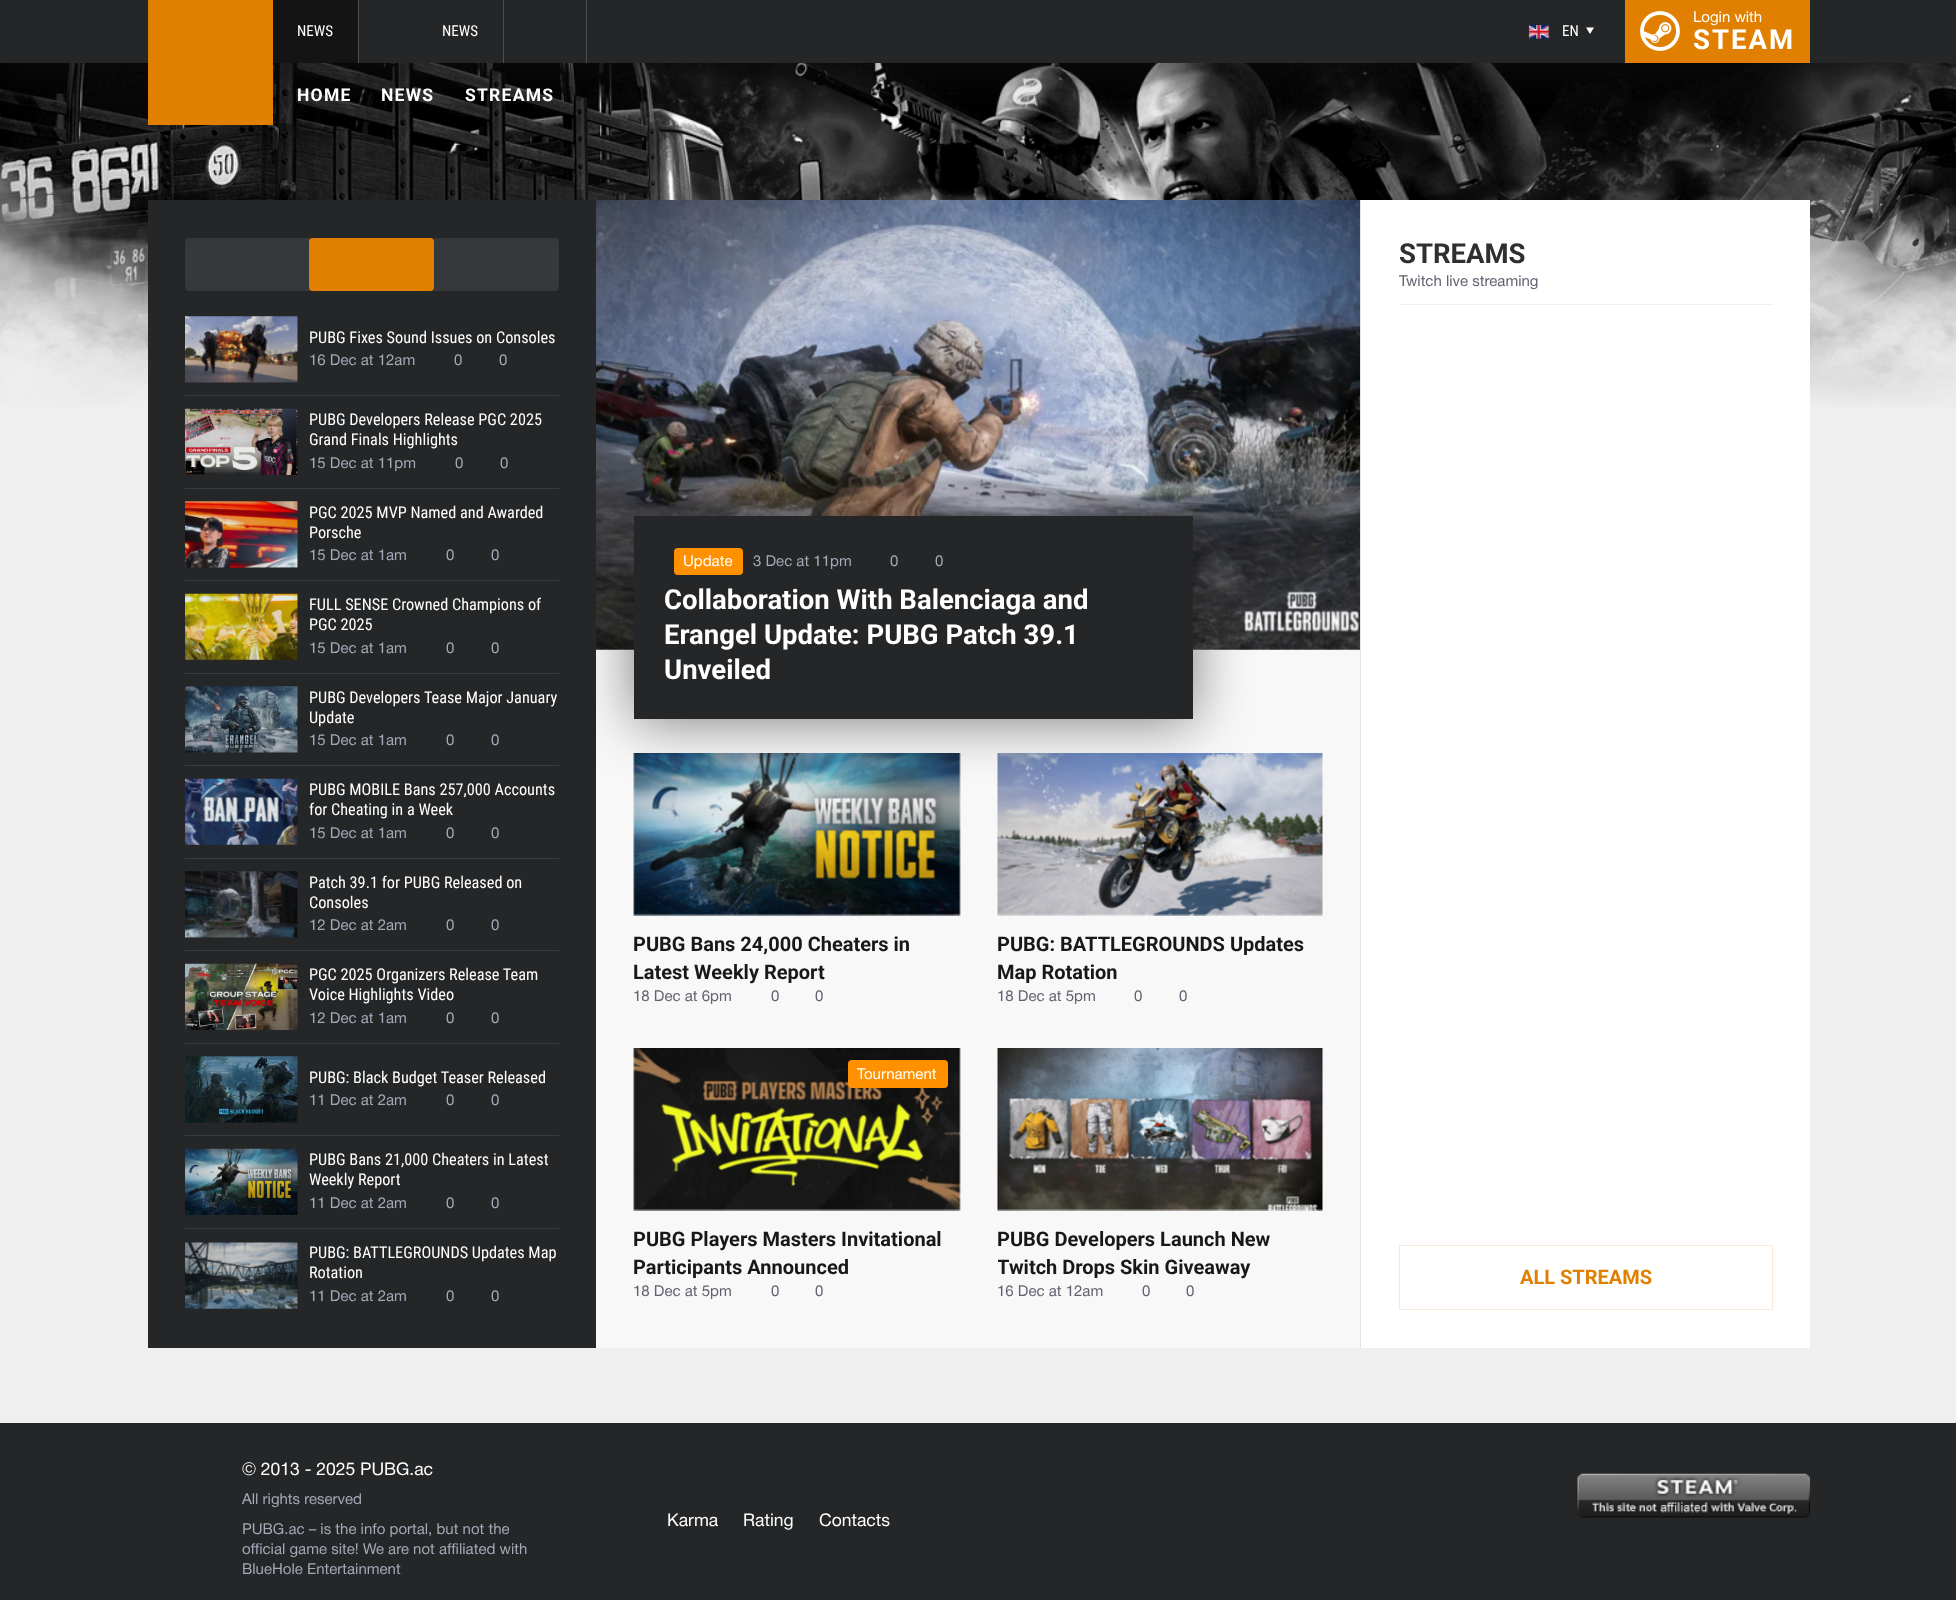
async function draw(canvas) {
	canvas.width = 1956;
	canvas.height = 1600;
	const c = canvas.getContext('2d');
	c.miterLimit = 4;
	c.fontKerning = 'normal';
	async function loadImage(src) {
		const img = new Image();
		img.src = src;
		await img.decode();
		return img;
	}

	c.fillStyle = '#efefef';
	c.fillRect(0, 0, 1956, 1600);
	c.drawImage(await loadImage('img1.png'), 0, 63, 1956, 344);
	c.fillStyle = '#1e1e1e66';
	c.filter = 'blur(25px)';
	c.beginPath();
	c.rect(-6, -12, 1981, 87);
	c.fill();
	c.filter = 'none';
	for (const [x, y, w, h, color] of [
		[0, 0, 1956, 63, '#242628'],
		[148, 0, 125, 125, '#e18000'],
		[273, 0, 85, 63, '#141415'],
		[358, 0, 1, 63, '#4b4d4f'],
	]) {
		c.fillStyle = color;
		c.fillRect(x, y, w, h);
	}
	c.font = '15px Roboto Condensed';
	c.fillStyle = '#fff';
	c.fillText('NEWS', 297, 36);
	c.fillStyle = '#4b4d4f';
	c.fillRect(503, 0, 1, 63);
	c.fillStyle = '#fff';
	c.fillText('NEWS', 442, 36);
	c.fillStyle = '#4b4d4f';
	c.fillRect(586, 0, 1, 63);
	c.drawImage(await loadImage('img2.png'), 1528, 25, 21, 14);
	c.fillStyle = '#fff';
	c.fillText('EN', 1562, 36);
	c.beginPath();
	c.moveTo(1586, 27.5);
	c.lineTo(1594, 27.5);
	c.lineTo(1590, 34);
	c.closePath();
	c.fill();
	c.fillStyle = '#e18000';
	c.fillRect(1625, 0, 185, 63);
	c.drawImage(await loadImage('img3.png'), 1640, 11, 40, 40);
	c.font = '15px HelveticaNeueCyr';
	c.fillStyle = '#fff';
	c.fillText('Login with', 1693, 22);
	c.letterSpacing = '2px';
	c.font = 'bold 27.5px Roboto';
	c.fillText('STEAM', 1693, 49);
	c.letterSpacing = '1.25px';
	c.font = 'bold 17.5px Roboto';
	for (const [text, x, y] of [
		['HOME', 297, 101],
		['NEWS', 381, 101],
		['STREAMS', 465, 101],
	]) {
		c.fillText(text, x, y);
	}
	c.fillStyle = '#242628';
	c.fillRect(148, 200, 448, 1148);
	c.fillStyle = '#36383b';
	c.beginPath();
	c.roundRect(185, 238, 374, 53, 4);
	c.fill();
	c.fillStyle = '#e18000';
	c.beginPath();
	c.roundRect(309, 238, 125, 53, 4);
	c.fill();
	c.fillStyle = '#3a3c3e';
	c.fillRect(185, 395, 374, 1);
	c.drawImage(await loadImage('img4.png'), 185, 316, 113, 67);
	c.letterSpacing = '0px';
	c.font = '16.25px Roboto Condensed';
	c.fillStyle = '#fff';
	c.fillText('PUBG Fixes Sound Issues on Consoles', 309, 343);
	c.font = '15px HelveticaNeueCyr';
	c.fillStyle = '#a4a9b7';
	for (const [text, x, y] of [
		['16 Dec at 12am', 309, 365],
		['0', 454, 365],
		['0', 499, 365],
	]) {
		c.fillText(text, x, y);
	}
	c.fillStyle = '#3a3c3e';
	c.fillRect(185, 488, 374, 1);
	c.drawImage(await loadImage('img5.png'), 185, 408, 113, 67);
	c.font = '16.25px Roboto Condensed';
	c.fillStyle = '#fff';
	c.fillText('PUBG Developers Release PGC 2025', 309, 425);
	c.fillText('Grand Finals Highlights', 309, 445);
	c.font = '15px HelveticaNeueCyr';
	c.fillStyle = '#a4a9b7';
	for (const [text, x, y] of [
		['15 Dec at 11pm', 309, 468],
		['0', 455, 468],
		['0', 500, 468],
	]) {
		c.fillText(text, x, y);
	}
	c.fillStyle = '#3a3c3e';
	c.fillRect(185, 580, 374, 1);
	c.drawImage(await loadImage('img6.png'), 185, 501, 113, 67);
	c.font = '16.25px Roboto Condensed';
	c.fillStyle = '#fff';
	c.fillText('PGC 2025 MVP Named and Awarded', 309, 518);
	c.fillText('Porsche', 309, 538);
	c.font = '15px HelveticaNeueCyr';
	c.fillStyle = '#a4a9b7';
	for (const [text, x, y] of [
		['15 Dec at 1am', 309, 560],
		['0', 446, 560],
		['0', 491, 560],
	]) {
		c.fillText(text, x, y);
	}
	c.fillStyle = '#3a3c3e';
	c.fillRect(185, 673, 374, 1);
	c.drawImage(await loadImage('img7.png'), 185, 593, 113, 67);
	c.font = '16.25px Roboto Condensed';
	c.fillStyle = '#fff';
	c.fillText('FULL SENSE Crowned Champions of', 309, 610);
	c.fillText('PGC 2025', 309, 630);
	c.font = '15px HelveticaNeueCyr';
	c.fillStyle = '#a4a9b7';
	for (const [text, x, y] of [
		['15 Dec at 1am', 309, 653],
		['0', 446, 653],
		['0', 491, 653],
	]) {
		c.fillText(text, x, y);
	}
	c.fillStyle = '#3a3c3e';
	c.fillRect(185, 765, 374, 1);
	c.drawImage(await loadImage('img8.png'), 185, 686, 113, 67);
	c.font = '16.25px Roboto Condensed';
	c.fillStyle = '#fff';
	c.fillText('PUBG Developers Tease Major January', 309, 703);
	c.fillText('Update', 309, 723);
	c.font = '15px HelveticaNeueCyr';
	c.fillStyle = '#a4a9b7';
	for (const [text, x, y] of [
		['15 Dec at 1am', 309, 745],
		['0', 446, 745],
		['0', 491, 745],
	]) {
		c.fillText(text, x, y);
	}
	c.fillStyle = '#3a3c3e';
	c.fillRect(185, 858, 374, 1);
	c.drawImage(await loadImage('img9.png'), 185, 778, 113, 67);
	c.font = '16.25px Roboto Condensed';
	c.fillStyle = '#fff';
	c.fillText('PUBG MOBILE Bans 257,000 Accounts', 309, 795);
	c.fillText('for Cheating in a Week', 309, 815);
	c.font = '15px HelveticaNeueCyr';
	c.fillStyle = '#a4a9b7';
	for (const [text, x, y] of [
		['15 Dec at 1am', 309, 838],
		['0', 446, 838],
		['0', 491, 838],
	]) {
		c.fillText(text, x, y);
	}
	c.fillStyle = '#3a3c3e';
	c.fillRect(185, 950, 374, 1);
	c.drawImage(await loadImage('img10.png'), 185, 871, 113, 67);
	c.font = '16.25px Roboto Condensed';
	c.fillStyle = '#fff';
	c.fillText('Patch 39.1 for PUBG Released on', 309, 888);
	c.fillText('Consoles', 309, 908);
	c.font = '15px HelveticaNeueCyr';
	c.fillStyle = '#a4a9b7';
	for (const [text, x, y] of [
		['12 Dec at 2am', 309, 930],
		['0', 446, 930],
		['0', 491, 930],
	]) {
		c.fillText(text, x, y);
	}
	c.fillStyle = '#3a3c3e';
	c.fillRect(185, 1043, 374, 1);
	c.drawImage(await loadImage('img11.png'), 185, 963, 113, 67);
	c.font = '16.25px Roboto Condensed';
	c.fillStyle = '#fff';
	c.fillText('PGC 2025 Organizers Release Team', 309, 980);
	c.fillText('Voice Highlights Video', 309, 1000);
	c.font = '15px HelveticaNeueCyr';
	c.fillStyle = '#a4a9b7';
	for (const [text, x, y] of [
		['12 Dec at 1am', 309, 1023],
		['0', 446, 1023],
		['0', 491, 1023],
	]) {
		c.fillText(text, x, y);
	}
	c.fillStyle = '#3a3c3e';
	c.fillRect(185, 1135, 374, 1);
	c.drawImage(await loadImage('img12.png'), 185, 1056, 113, 67);
	c.font = '16.25px Roboto Condensed';
	c.fillStyle = '#fff';
	c.fillText('PUBG: Black Budget Teaser Released', 309, 1083);
	c.font = '15px HelveticaNeueCyr';
	c.fillStyle = '#a4a9b7';
	for (const [text, x, y] of [
		['11 Dec at 2am', 309, 1105],
		['0', 446, 1105],
		['0', 491, 1105],
	]) {
		c.fillText(text, x, y);
	}
	c.fillStyle = '#3a3c3e';
	c.fillRect(185, 1228, 374, 1);
	c.drawImage(await loadImage('img13.png'), 185, 1148, 113, 67);
	c.font = '16.25px Roboto Condensed';
	c.fillStyle = '#fff';
	c.fillText('PUBG Bans 21,000 Cheaters in Latest', 309, 1165);
	c.fillText('Weekly Report', 309, 1185);
	c.font = '15px HelveticaNeueCyr';
	c.fillStyle = '#a4a9b7';
	for (const [text, x, y] of [
		['11 Dec at 2am', 309, 1208],
		['0', 446, 1208],
		['0', 491, 1208],
	]) {
		c.fillText(text, x, y);
	}
	c.drawImage(await loadImage('img14.png'), 185, 1242, 113, 67);
	c.font = '16.25px Roboto Condensed';
	c.fillStyle = '#fff';
	c.fillText('PUBG: BATTLEGROUNDS Updates Map', 309, 1258);
	c.fillText('Rotation', 309, 1278);
	c.font = '15px HelveticaNeueCyr';
	c.fillStyle = '#a4a9b7';
	for (const [text, x, y] of [
		['11 Dec at 2am', 309, 1301],
		['0', 446, 1301],
		['0', 491, 1301],
	]) {
		c.fillText(text, x, y);
	}
	c.fillStyle = '#f8f8f8';
	c.fillRect(596, 649, 764, 699);
	c.drawImage(await loadImage('img15.png'), 596, 200, 764, 450);
	c.drawImage(await loadImage('img16.png'), 633, 753, 328, 163);
	c.drawImage(await loadImage('img17.png'), 997, 753, 326, 163);
	c.save();
	c.beginPath();
	c.rect(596, 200, 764, 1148);
	c.clip();
	c.fillStyle = '#00000080';
	c.filter = 'blur(28px)';
	c.beginPath();
	c.rect(634, 519, 559, 202);
	c.fill();
	c.filter = 'none';
	c.restore();
	c.fillStyle = '#242628';
	c.fillRect(634, 516, 559, 203);
	c.fillStyle = '#ff9101';
	c.beginPath();
	c.roundRect(674, 548, 69, 27, 4);
	c.fill();
	c.fillStyle = '#fff';
	c.fillText('Update', 683, 566);
	c.fillStyle = '#a4a9b7';
	for (const [text, x, y] of [
		['3 Dec at 11pm', 753, 566],
		['0', 890, 566],
		['0', 935, 566],
	]) {
		c.fillText(text, x, y);
	}
	c.font = 'bold 27.5px Roboto';
	c.fillStyle = '#fff';
	for (const [text, x, y] of [
		['Collaboration With Balenciaga and', 664, 609],
		['Erangel Update: PUBG Patch 39.1', 664, 644],
		['Unveiled', 664, 679],
	]) {
		c.fillText(text, x, y);
	}
	c.font = 'bold 20px Roboto';
	c.fillStyle = '#181819';
	c.fillText('PUBG Bans 24,000 Cheaters in', 633, 951);
	c.fillText('Latest Weekly Report', 633, 979);
	c.font = '15px HelveticaNeueCyr';
	c.fillStyle = '#616170';
	for (const [text, x, y] of [
		['18 Dec at 6pm', 633, 1001],
		['0', 771, 1001],
		['0', 815, 1001],
	]) {
		c.fillText(text, x, y);
	}
	c.font = 'bold 20px Roboto';
	c.fillStyle = '#181819';
	c.fillText('PUBG: BATTLEGROUNDS Updates', 997, 951);
	c.fillText('Map Rotation', 997, 979);
	c.font = '15px HelveticaNeueCyr';
	c.fillStyle = '#616170';
	for (const [text, x, y] of [
		['18 Dec at 5pm', 997, 1001],
		['0', 1134, 1001],
		['0', 1179, 1001],
	]) {
		c.fillText(text, x, y);
	}
	c.drawImage(await loadImage('img18.png'), 633, 1048, 328, 163);
	c.fillStyle = '#ff9101';
	c.beginPath();
	c.roundRect(848, 1060, 100, 28, 4);
	c.fill();
	c.fillStyle = '#fff';
	c.fillText('Tournament', 857, 1079);
	c.font = 'bold 20px Roboto';
	c.fillStyle = '#181819';
	c.fillText('PUBG Players Masters Invitational', 633, 1246);
	c.fillText('Participants Announced', 633, 1274);
	c.font = '15px HelveticaNeueCyr';
	c.fillStyle = '#616170';
	for (const [text, x, y] of [
		['18 Dec at 5pm', 633, 1296],
		['0', 771, 1296],
		['0', 815, 1296],
	]) {
		c.fillText(text, x, y);
	}
	c.drawImage(await loadImage('img19.png'), 997, 1048, 326, 163);
	c.font = 'bold 20px Roboto';
	c.fillStyle = '#181819';
	c.fillText('PUBG Developers Launch New', 997, 1246);
	c.save();
	c.beginPath();
	c.rect(998, 1226, 325, 53);
	c.clip();
	c.fillText('Twitch Drops Skin Giveaway', 997, 1274);
	c.restore();
	c.font = '15px HelveticaNeueCyr';
	c.fillStyle = '#616170';
	for (const [text, x, y] of [
		['16 Dec at 12am', 997, 1296],
		['0', 1142, 1296],
		['0', 1186, 1296],
	]) {
		c.fillText(text, x, y);
	}
	for (const [x, y, w, h, color] of [
		[1360, 200, 1, 1148, '#e3e3e3'],
		[1361, 200, 449, 1148, '#fff'],
		[1399, 304, 374, 1, '#f0f0f0'],
	]) {
		c.fillStyle = color;
		c.fillRect(x, y, w, h);
	}
	c.font = 'bold 27.5px Roboto';
	c.fillStyle = '#2e2f30';
	c.fillText('STREAMS', 1399, 263);
	c.font = '15px HelveticaNeueCyr';
	c.fillStyle = '#616170';
	c.fillText('Twitch live streaming', 1399, 286);
	c.strokeStyle = '#faebd6';
	c.strokeRect(1399.5, 1245.5, 373, 64);
	c.font = 'bold 20px Roboto';
	c.fillStyle = '#e18000';
	c.fillText('ALL STREAMS', 1520, 1284);
	c.fillStyle = '#242628';
	c.fillRect(0, 1423, 1956, 177);
	c.font = '17.5px HelveticaNeueCyr';
	c.fillStyle = '#fff';
	c.fillText('© 2013 - 2025 PUBG.ac', 242, 1475);
	c.font = '15px HelveticaNeueCyr';
	c.fillStyle = '#a4a9b7';
	for (const [text, x, y] of [
		['All rights reserved', 242, 1504],
		['PUBG.ac – is the info portal, but not the', 242, 1534],
		['official game site! We are not affiliated with', 242, 1554],
		['BlueHole Entertainment', 242, 1574],
	]) {
		c.fillText(text, x, y);
	}
	c.drawImage(await loadImage('img20.png'), 1577, 1473, 233, 45);
	c.font = '17.5px HelveticaNeueCyr';
	c.fillStyle = '#fff';
	for (const [text, x, y] of [
		['Karma', 667, 1526],
		['Rating', 743, 1526],
		['Contacts', 819, 1526],
	]) {
		c.fillText(text, x, y);
	}
}

draw(document.querySelector('canvas'));
